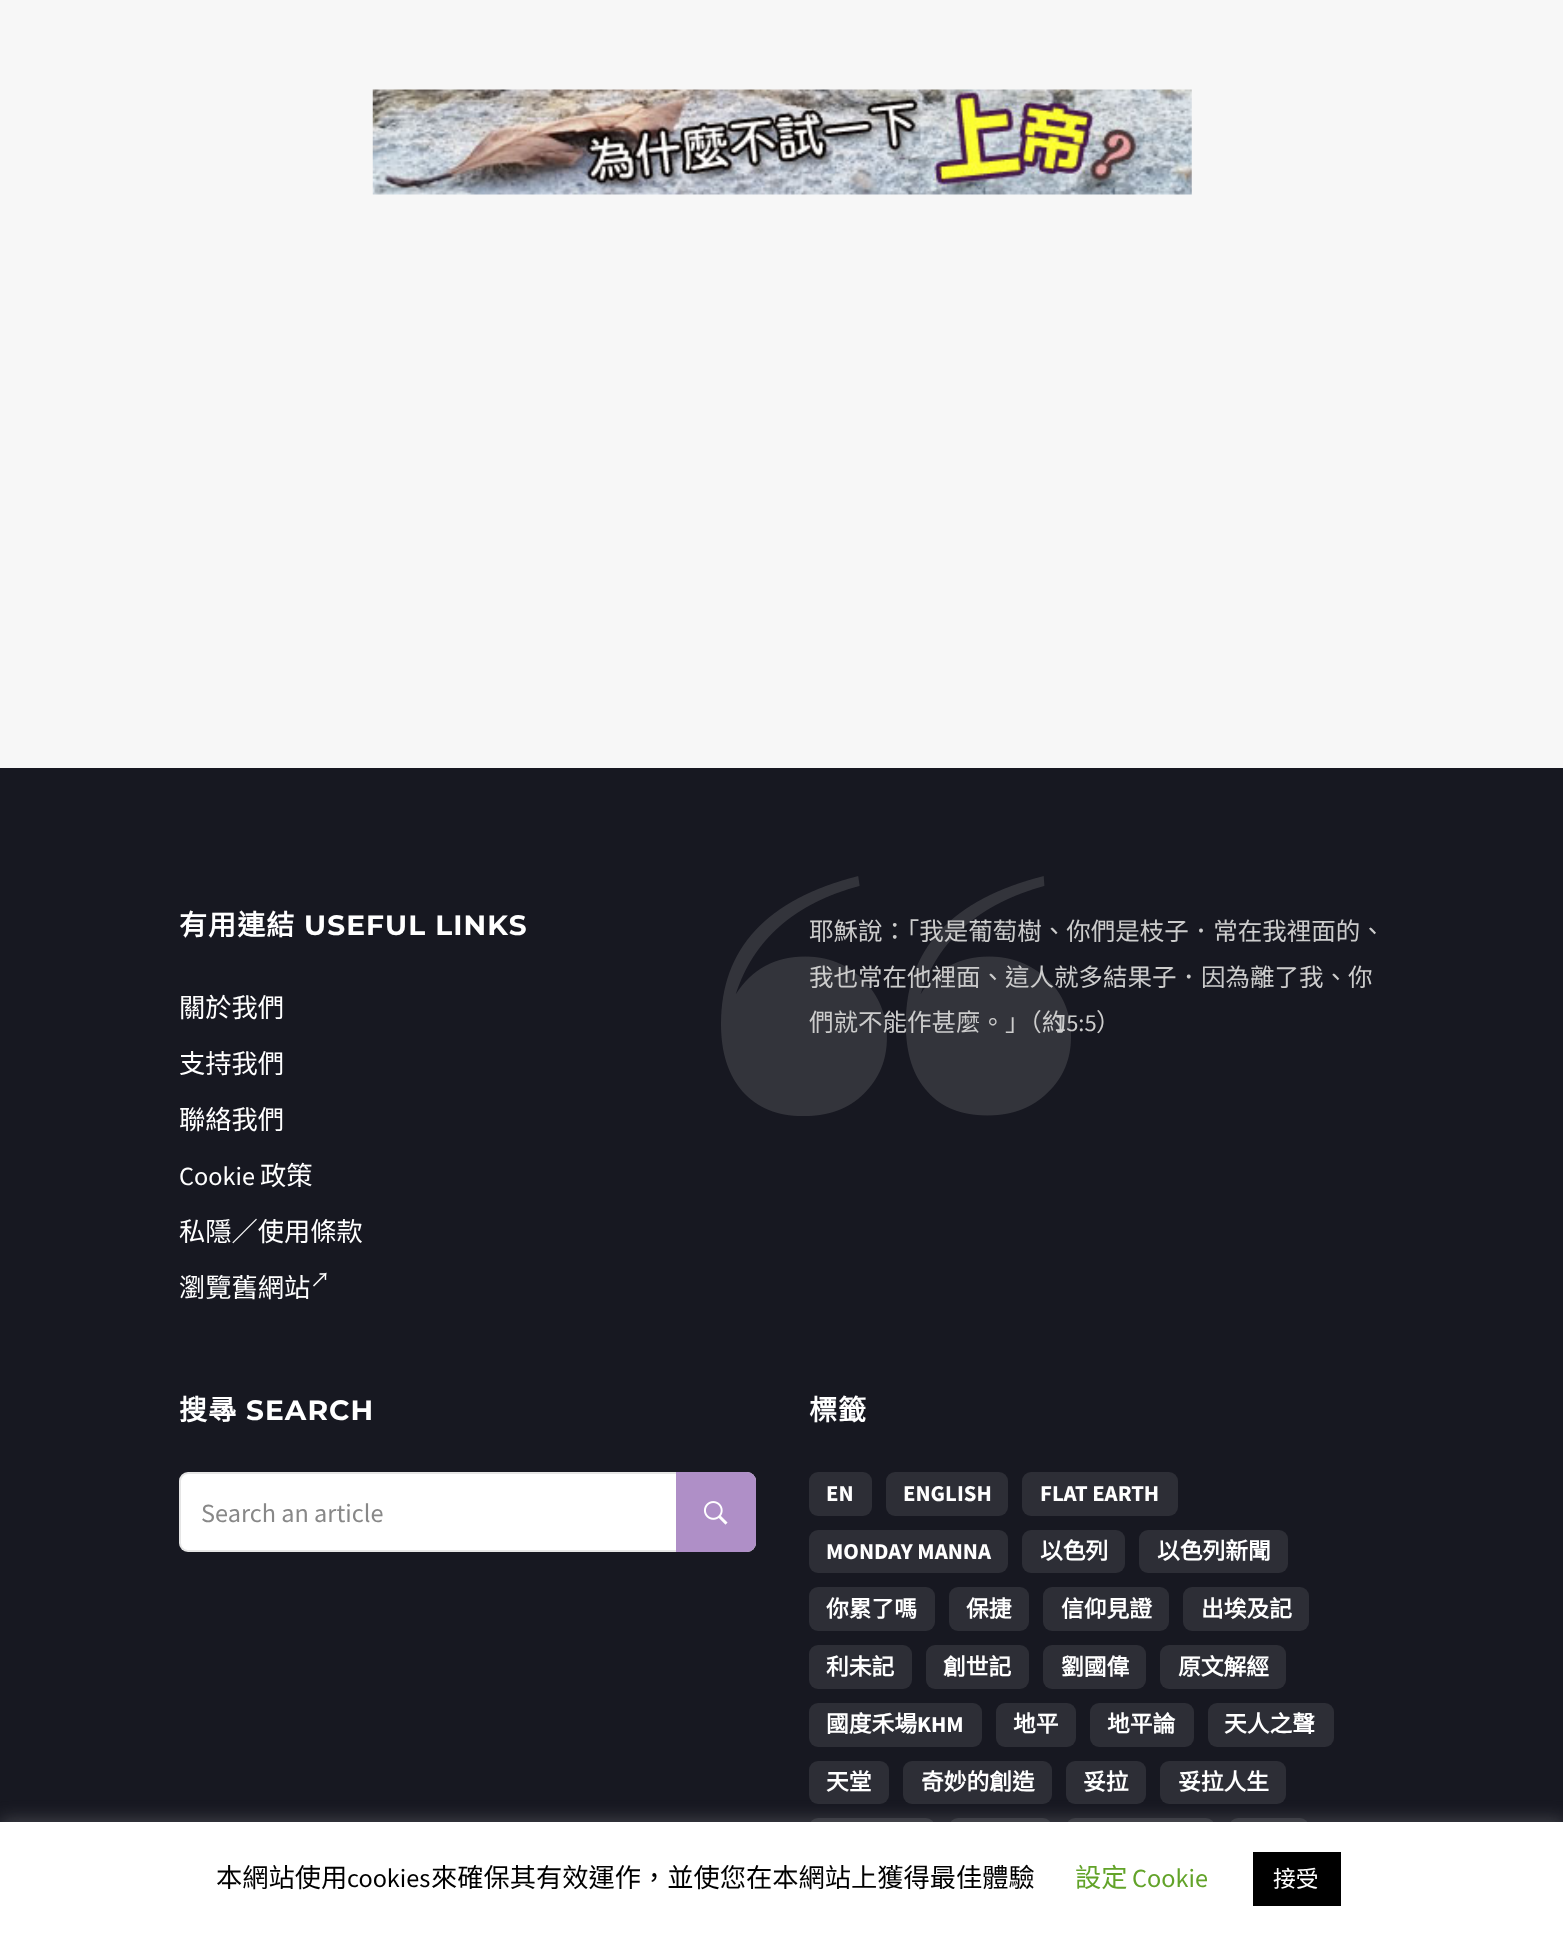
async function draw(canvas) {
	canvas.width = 1563;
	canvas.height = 1935;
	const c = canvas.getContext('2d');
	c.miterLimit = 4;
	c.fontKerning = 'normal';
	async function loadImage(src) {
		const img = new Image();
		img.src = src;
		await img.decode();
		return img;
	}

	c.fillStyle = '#f7f7f7';
	c.fillRect(0, 0, 1563, 1935);
	c.drawImage(await loadImage('img1.png'), 372, 89, 820, 106);
	c.fillStyle = '#171821';
	c.fillRect(0, 768, 1563, 1054);
	c.letterSpacing = '1.1px';
	c.font = 'bold 28px Noto Sans CJK TC';
	c.fillStyle = '#fff';
	c.fillText('有用連結', 179, 935);
	c.font = 'bold 28px Montserrat';
	c.fillText('USEFUL LINKS', 304, 935);
	c.letterSpacing = '0px';
	c.font = '26.25px Noto Sans CJK TC';
	for (const [text, x, y] of [
		['關於我們', 179, 1017],
		['支持我們', 179, 1073],
		['聯絡我們', 179, 1129],
	]) {
		c.fillText(text, x, y);
	}
	c.font = '26.25px Source Sans Pro';
	c.fillText('Cookie', 179, 1185);
	c.font = '26.25px Noto Sans CJK TC';
	for (const [text, x, y] of [
		['政策', 260, 1185],
		['私隱／使用條款', 179, 1241],
		['瀏覽舊網站', 179, 1297],
	]) {
		c.fillText(text, x, y);
	}
	c.font = '20px Noto Sans CJK TC';
	c.fillText('↗', 310, 1287);
	c.drawImage(await loadImage('img2.png'), 721, 876, 350, 240);
	c.font = '24.5px Noto Sans CJK TC';
	c.fillStyle = '#ccc';
	for (const [text, x, y] of [
		['耶穌說：「我是葡萄樹、你們是枝子．常在我裡面的、', 809, 940],
		['我也常在他裡面、這人就多結果子．因為離了我、你', 809, 986],
		['們就不能作甚麼。」（約', 809, 1031],
	]) {
		c.fillText(text, x, y);
	}
	c.font = '24.5px Source Sans Pro';
	c.fillText('15:5', 1054, 1031);
	c.font = '24.5px Noto Sans CJK TC';
	c.fillText('）', 1096, 1031);
	c.letterSpacing = '1.1px';
	c.font = 'bold 28px Noto Sans CJK TC';
	c.fillStyle = '#fff';
	c.fillText('搜㝷', 179, 1420);
	c.font = 'bold 28px Montserrat';
	c.fillText('SEARCH', 246, 1420);
	c.beginPath();
	c.roundRect(179, 1472, 577, 80, 9);
	c.fill();
	c.beginPath();
	c.roundRect(180, 1473, 575, 78, 8);
	c.strokeStyle = '#0000001a';
	c.lineWidth = 2;
	c.stroke();
	c.letterSpacing = '0px';
	c.font = '26.25px Source Sans Pro';
	c.fillStyle = '#888';
	c.fillText('Search an article', 201, 1522);
	c.fillStyle = '#af8fc7';
	c.beginPath();
	c.roundRect(676, 1472, 80, 80, [0, 9, 9, 0]);
	c.fill();
	c.drawImage(await loadImage('img3.png'), 703, 1501, 25, 24);
	c.letterSpacing = '1.1px';
	c.font = 'bold 28px Noto Sans CJK TC';
	c.fillStyle = '#fff';
	c.fillText('標籤', 809, 1420);
	c.fillStyle = '#2d2e36';
	c.beginPath();
	c.roundRect(809, 1472, 63, 44, 9);
	c.fill();
	c.letterSpacing = '0px';
	c.font = 'bold 22.75px Source Sans Pro';
	c.fillStyle = '#fff';
	c.fillText('EN', 826, 1501);
	c.fillStyle = '#2d2e36';
	c.beginPath();
	c.roundRect(886, 1472, 122, 44, 9);
	c.fill();
	c.fillStyle = '#fff';
	c.fillText('ENGLISH', 903, 1501);
	c.fillStyle = '#2d2e36';
	c.beginPath();
	c.roundRect(1022, 1472, 156, 44, 9);
	c.fill();
	c.fillStyle = '#fff';
	c.fillText('FLAT EARTH', 1040, 1501);
	c.fillStyle = '#2d2e36';
	c.beginPath();
	c.roundRect(809, 1530, 199, 43, 9);
	c.fill();
	c.fillStyle = '#fff';
	c.fillText('MONDAY MANNA', 826, 1559);
	c.fillStyle = '#2d2e36';
	c.beginPath();
	c.roundRect(1022, 1530, 103, 43, 9);
	c.fill();
	c.font = 'bold 22.75px Noto Sans CJK TC';
	c.fillStyle = '#fff';
	c.fillText('以色列', 1040, 1559);
	c.fillStyle = '#2d2e36';
	c.beginPath();
	c.roundRect(1139, 1530, 149, 43, 9);
	c.fill();
	c.fillStyle = '#fff';
	c.fillText('以色列新聞', 1157, 1559);
	c.fillStyle = '#2d2e36';
	c.beginPath();
	c.roundRect(809, 1587, 126, 44, 9);
	c.fill();
	c.fillStyle = '#fff';
	c.fillText('你累了嗎', 826, 1617);
	c.fillStyle = '#2d2e36';
	c.beginPath();
	c.roundRect(949, 1587, 80, 44, 9);
	c.fill();
	c.fillStyle = '#fff';
	c.fillText('保捷', 966, 1617);
	c.fillStyle = '#2d2e36';
	c.beginPath();
	c.roundRect(1043, 1587, 126, 44, 9);
	c.fill();
	c.fillStyle = '#fff';
	c.fillText('信仰見證', 1061, 1617);
	c.fillStyle = '#2d2e36';
	c.beginPath();
	c.roundRect(1183, 1587, 126, 44, 9);
	c.fill();
	c.fillStyle = '#fff';
	c.fillText('出埃及記', 1201, 1617);
	c.fillStyle = '#2d2e36';
	c.beginPath();
	c.roundRect(809, 1645, 103, 44, 9);
	c.fill();
	c.fillStyle = '#fff';
	c.fillText('利未記', 826, 1675);
	c.fillStyle = '#2d2e36';
	c.beginPath();
	c.roundRect(926, 1645, 103, 44, 9);
	c.fill();
	c.fillStyle = '#fff';
	c.fillText('創世記', 943, 1675);
	c.fillStyle = '#2d2e36';
	c.beginPath();
	c.roundRect(1043, 1645, 103, 44, 9);
	c.fill();
	c.fillStyle = '#fff';
	c.fillText('劉國偉', 1061, 1675);
	c.fillStyle = '#2d2e36';
	c.beginPath();
	c.roundRect(1160, 1645, 126, 44, 9);
	c.fill();
	c.fillStyle = '#fff';
	c.fillText('原文解經', 1178, 1675);
	c.fillStyle = '#2d2e36';
	c.beginPath();
	c.roundRect(809, 1703, 173, 44, 9);
	c.fill();
	c.fillStyle = '#fff';
	c.fillText('國度禾場', 826, 1732);
	c.font = 'bold 22.75px Source Sans Pro';
	c.fillText('KHM', 917, 1732);
	c.fillStyle = '#2d2e36';
	c.beginPath();
	c.roundRect(996, 1703, 80, 44, 9);
	c.fill();
	c.font = 'bold 22.75px Noto Sans CJK TC';
	c.fillStyle = '#fff';
	c.fillText('地平', 1013, 1732);
	c.fillStyle = '#2d2e36';
	c.beginPath();
	c.roundRect(1090, 1703, 104, 44, 9);
	c.fill();
	c.fillStyle = '#fff';
	c.fillText('地平論', 1107, 1732);
	c.fillStyle = '#2d2e36';
	c.beginPath();
	c.roundRect(1208, 1703, 126, 44, 9);
	c.fill();
	c.fillStyle = '#fff';
	c.fillText('天人之聲', 1224, 1732);
	c.fillStyle = '#2d2e36';
	c.beginPath();
	c.roundRect(809, 1761, 80, 43, 9);
	c.fill();
	c.fillStyle = '#fff';
	c.fillText('天堂', 826, 1790);
	c.fillStyle = '#2d2e36';
	c.beginPath();
	c.roundRect(903, 1761, 149, 43, 9);
	c.fill();
	c.fillStyle = '#fff';
	c.fillText('奇妙的創造', 921, 1790);
	c.fillStyle = '#2d2e36';
	c.beginPath();
	c.roundRect(1066, 1761, 80, 43, 9);
	c.fill();
	c.fillStyle = '#fff';
	c.fillText('妥拉', 1083, 1790);
	c.fillStyle = '#2d2e36';
	c.beginPath();
	c.roundRect(1160, 1761, 126, 43, 9);
	c.fill();
	c.fillStyle = '#fff';
	c.fillText('妥拉人生', 1178, 1790);
	c.fillStyle = '#2d2e36';
	c.beginPath();
	c.roundRect(809, 1818, 126, 44, 9);
	c.fill();
	c.beginPath();
	c.roundRect(949, 1818, 103, 44, 9);
	c.fill();
	c.beginPath();
	c.roundRect(1066, 1818, 149, 44, 9);
	c.fill();
	c.beginPath();
	c.roundRect(1229, 1818, 80, 44, 9);
	c.fill();
	c.fillStyle = '#acabab4d';
	c.filter = 'blur(9px)';
	c.beginPath();
	c.rect(0, 1820, 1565, 114);
	c.fill();
	c.filter = 'none';
	c.fillStyle = '#fff';
	c.fillRect(0, 1822, 1563, 113);
	c.font = '26.25px Noto Sans CJK TC';
	c.fillStyle = '#000';
	c.fillText('本網站使用', 216, 1887);
	c.font = '26.25px Source Sans Pro';
	c.fillText('cookies', 347, 1887);
	c.font = '26.25px Noto Sans CJK TC';
	c.fillText('來確保其有效運作，並使您在本網站上獲得最佳體驗', 431, 1887);
	c.fillStyle = '#62a329';
	c.fillText('設定', 1075, 1887);
	c.font = '26.25px Source Sans Pro';
	c.fillText('Cookie', 1132, 1887);
	c.fillStyle = '#000';
	c.fillRect(1253, 1852, 88, 54);
	c.font = '22.75px Noto Sans CJK TC';
	c.fillStyle = '#fff';
	c.fillText('接受', 1273, 1887);
}

draw(document.querySelector('canvas'));
